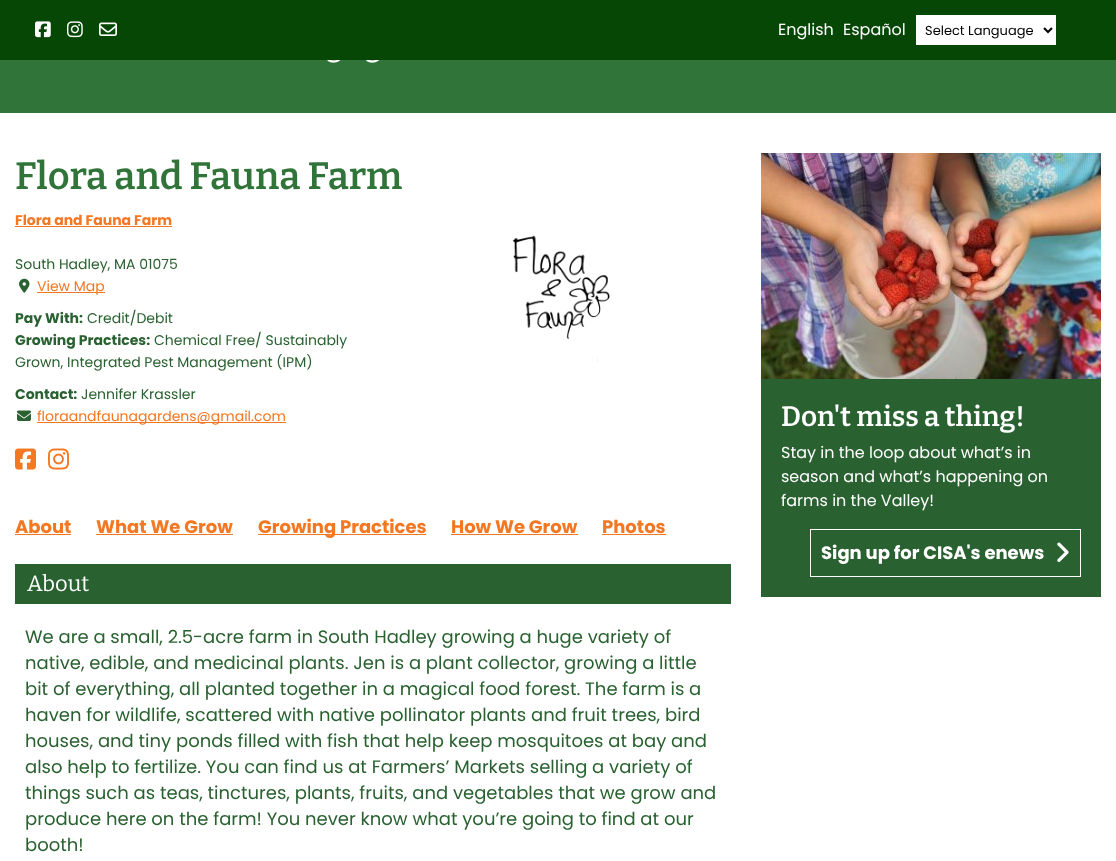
async function draw(canvas) {
	canvas.width = 1116;
	canvas.height = 861;
	const c = canvas.getContext('2d');
	c.miterLimit = 4;
	c.fontKerning = 'normal';
	async function loadImage(src) {
		const img = new Image();
		img.src = src;
		await img.decode();
		return img;
	}

	c.fillStyle = '#fff';
	c.fillRect(0, 0, 1116, 861);
	c.fillStyle = '#064706';
	c.fillRect(0, 0, 1116, 60);
	c.drawImage(await loadImage('img1.png'), 35, 21, 16, 17);
	c.drawImage(await loadImage('img2.png'), 67, 21, 16, 17);
	c.drawImage(await loadImage('img3.png'), 99, 22, 18, 14);
	c.font = '16px Poppins';
	c.fillStyle = '#fff';
	c.fillText('English', 778, 35);
	c.fillText('Español', 843, 35);
	c.fillRect(916, 15, 140, 30);
	c.beginPath();
	c.moveTo(1044, 28);
	c.lineTo(1048, 32);
	c.lineTo(1052, 28);
	c.strokeStyle = '#000';
	c.lineWidth = 2;
	c.stroke();
	c.font = '13px Poppins';
	c.fillStyle = '#000';
	c.fillText('Select Language', 925, 35);
	c.fillStyle = '#307439';
	c.fillRect(0, 60, 1116, 53);
	c.drawImage(await loadImage('img4.png'), 327, 60, 52, 3);
	c.font = '600 38px Bitter';
	c.fillText('Flora and Fauna Farm', 15, 189);
	c.font = 'bold 14px Poppins';
	c.fillStyle = '#f47722';
	c.fillText('Flora and Fauna Farm', 15, 225);
	c.fillRect(15, 226, 157, 1);
	c.font = '14px Poppins';
	c.fillStyle = '#296130';
	c.fillText('South Hadley, MA 01075', 15, 269);
	c.drawImage(await loadImage('img5.png'), 19, 278, 11, 15);
	c.fillStyle = '#f47722';
	c.fillRect(37, 292, 68, 1);
	c.fillText('View Map', 37, 291);
	c.font = 'bold 14px Poppins';
	c.fillStyle = '#296130';
	c.fillText('Pay With:', 15, 323);
	c.font = '14px Poppins';
	c.fillText('Credit/Debit', 87, 323);
	c.font = 'bold 14px Poppins';
	c.fillText('Growing Practices:', 15, 345);
	c.font = '14px Poppins';
	c.fillText('Chemical Free/ Sustainably', 154, 345);
	c.fillText('Grown, Integrated Pest Management (IPM)', 15, 367);
	c.font = 'bold 14px Poppins';
	c.fillText('Contact:', 15, 399);
	c.font = '14px Poppins';
	c.fillText('Jennifer Krassler', 81, 399);
	c.drawImage(await loadImage('img6.png'), 17, 410, 14, 11);
	c.fillStyle = '#f47722';
	c.fillRect(37, 422, 249, 1);
	c.fillText('floraandfaunagardens@gmail.com', 37, 421);
	c.drawImage(await loadImage('img7.png'), 15, 448, 21, 22);
	c.drawImage(await loadImage('img8.png'), 48, 448, 21, 22);
	c.drawImage(await loadImage('img9.png'), 504, 235, 106, 126);
	c.font = 'bold 18px Poppins';
	c.fillText('About', 15, 533);
	c.fillRect(15, 534, 56, 1);
	c.fillText('What We Grow', 96, 533);
	c.fillRect(96, 534, 137, 1);
	c.fillRect(258, 534, 168, 1);
	c.fillText('Growing Practices', 258, 533);
	c.fillText('How We Grow', 451, 533);
	c.fillRect(451, 534, 127, 1);
	c.fillText('Photos', 602, 533);
	c.fillRect(602, 534, 64, 1);
	c.fillStyle = '#296130';
	c.fillRect(15, 564, 716, 40);
	c.font = '22px Bitter';
	c.fillStyle = '#fff';
	c.fillText('About', 27, 591);
	c.font = '18px Poppins';
	c.fillStyle = '#296130';
	for (const [text, x, y] of [
		['We are a small, 2.5-acre farm in South Hadley growing a huge variety of', 25, 643],
		['native, edible, and medicinal plants. Jen is a plant collector, growing a little', 25, 669],
		['bit of everything, all planted together in a magical food forest. The farm is a', 25, 695],
		['haven for wildlife, scattered with native pollinator plants and fruit trees, bird', 25, 721],
		['houses, and tiny ponds filled with fish that help keep mosquitoes at bay and', 25, 747],
		['also help to fertilize. You can find us at Farmers’ Markets selling a variety of', 25, 773],
		['things such as teas, tinctures, plants, fruits, and vegetables that we grow and', 25, 799],
		['produce here on the farm! You never know what you’re going to find at our', 25, 825],
		['booth!', 25, 851],
	]) {
		c.fillText(text, x, y);
	}
	c.fillRect(761, 379, 340, 218);
	c.drawImage(await loadImage('img10.png'), 761, 153, 340, 226);
	c.font = '600 28px Bitter';
	c.fillStyle = '#fff';
	c.fillText('Don\'t miss a thing!', 781, 426);
	c.font = '16px Poppins';
	for (const [text, x, y] of [
		['Stay in the loop about what’s in', 781, 458],
		['season and what’s happening on', 781, 482],
		['farms in the Valley!', 781, 506],
	]) {
		c.fillText(text, x, y);
	}
	c.strokeStyle = '#fff';
	c.lineWidth = 1;
	c.strokeRect(810.5, 529.5, 270, 47);
	c.font = 'bold 18px Poppins';
	c.fillText('Sign up for CISA\'s enews', 821, 559);
	c.drawImage(await loadImage('img11.png'), 1057, 542, 12, 20);
}

draw(document.querySelector('canvas'));
